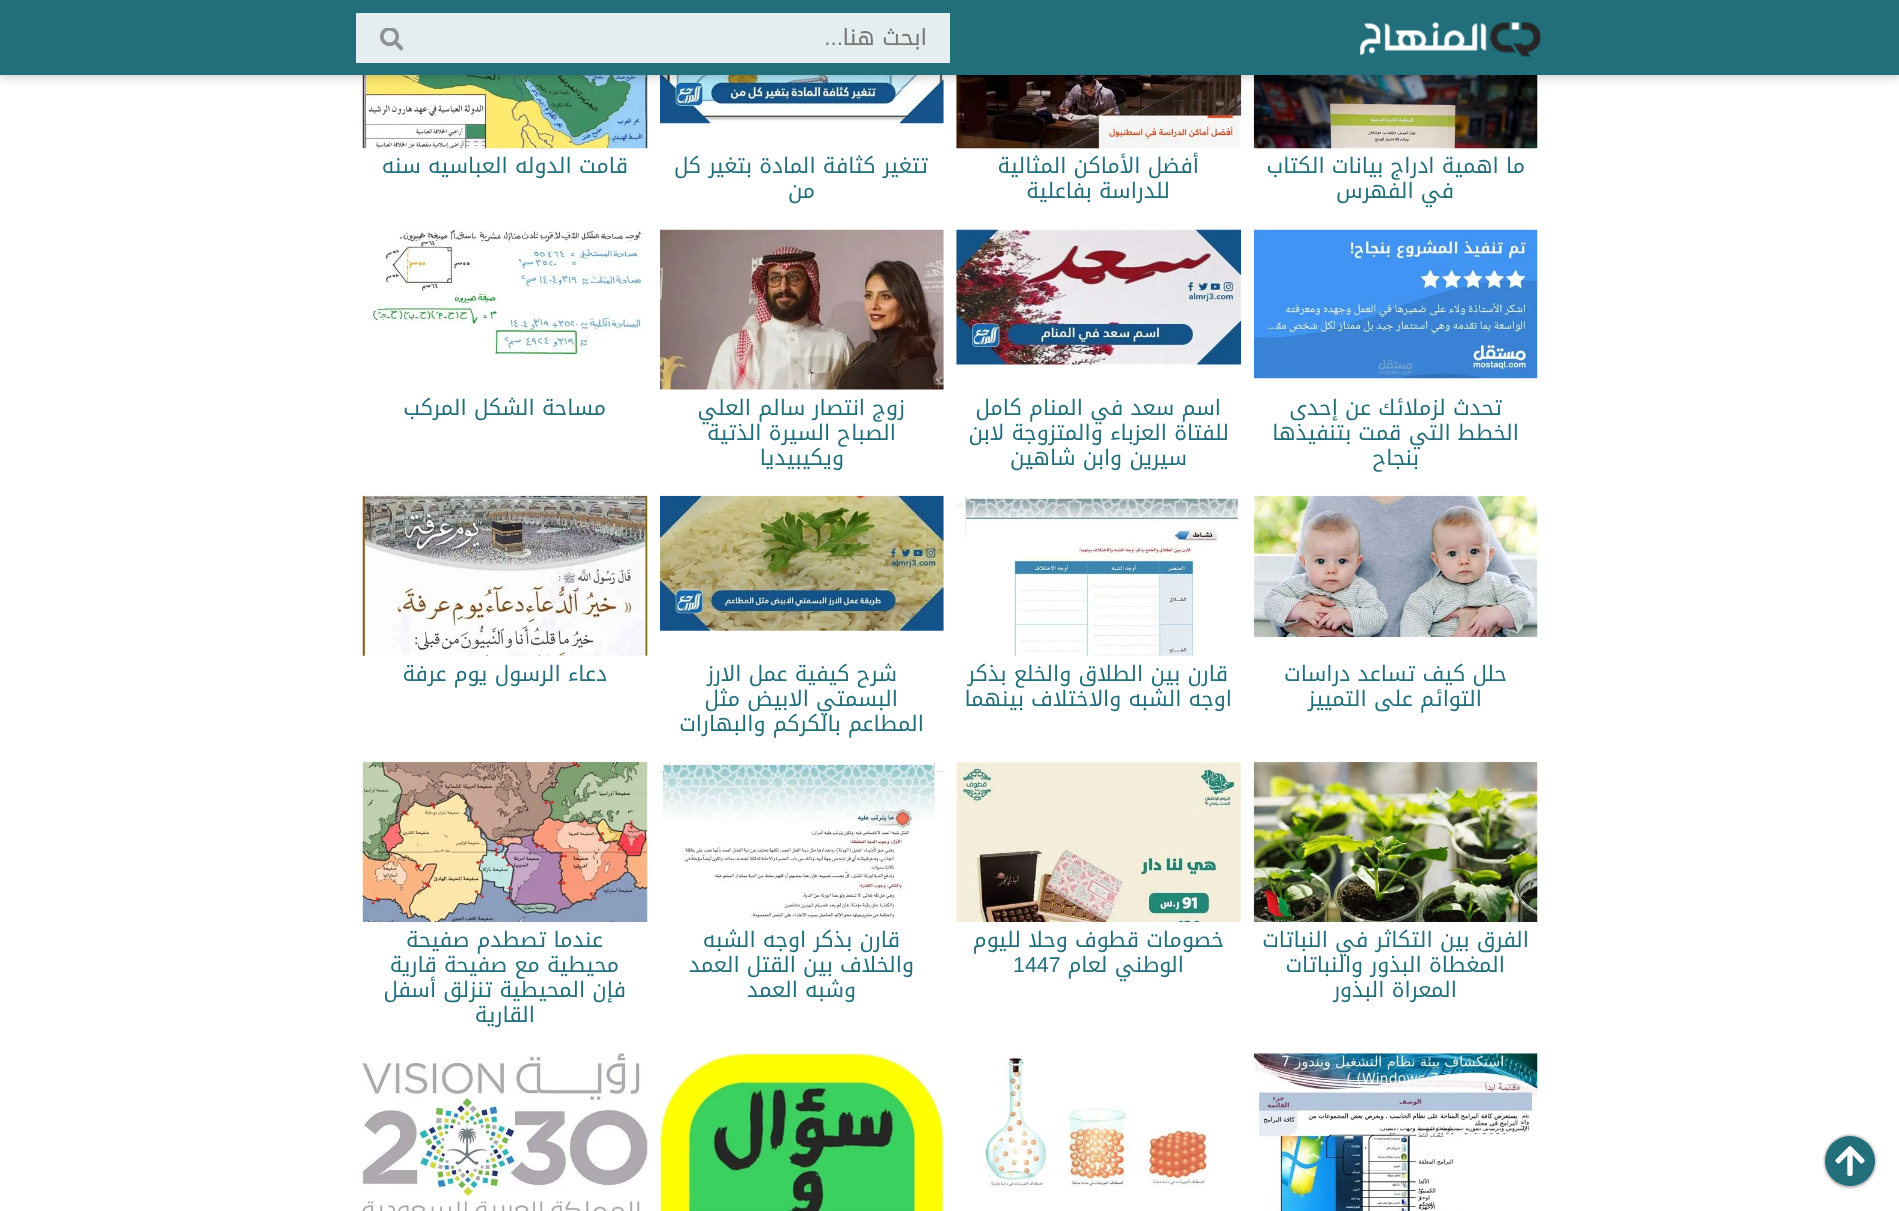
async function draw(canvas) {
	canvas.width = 1899;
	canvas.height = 1211;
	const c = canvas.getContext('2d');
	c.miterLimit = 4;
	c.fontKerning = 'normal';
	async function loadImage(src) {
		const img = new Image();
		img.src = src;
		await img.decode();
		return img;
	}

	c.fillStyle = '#fff';
	c.fillRect(0, 0, 1899, 1211);
	c.fillStyle = '#00000066';
	c.filter = 'blur(0.5px)';
	c.beginPath();
	c.rect(1254, -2, 284, 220);
	c.fill();
	c.filter = 'none';
	c.fillStyle = '#fff';
	c.fillRect(1254, 75, 284, 143);
	c.drawImage(await loadImage('img3.png'), 1253, 75, 285, 74);
	c.fillStyle = '#00000066';
	c.filter = 'blur(0.5px)';
	c.beginPath();
	c.rect(956, -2, 285, 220);
	c.fill();
	c.filter = 'none';
	c.fillStyle = '#fff';
	c.fillRect(956, 75, 285, 143);
	c.drawImage(await loadImage('img4.png'), 956, 75, 286, 74);
	c.fillStyle = '#00000066';
	c.filter = 'blur(0.5px)';
	c.beginPath();
	c.rect(660, -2, 284, 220);
	c.fill();
	c.filter = 'none';
	c.fillStyle = '#fff';
	c.fillRect(660, 75, 284, 143);
	c.drawImage(await loadImage('img5.png'), 660, 75, 284, 49);
	c.fillStyle = '#00000066';
	c.filter = 'blur(0.5px)';
	c.beginPath();
	c.rect(363, -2, 285, 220);
	c.fill();
	c.filter = 'none';
	c.fillStyle = '#fff';
	c.fillRect(363, 75, 285, 143);
	c.drawImage(await loadImage('img6.png'), 362, 75, 286, 74);
	c.fillStyle = '#0000002e';
	c.filter = 'blur(4px)';
	c.beginPath();
	c.rect(0, 3, 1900, 75);
	c.fill();
	c.filter = 'none';
	c.fillStyle = '#236e7b';
	c.fillRect(0, 0, 1899, 75);
	c.drawImage(await loadImage('img1.png'), 1360, 22, 181, 35);
	c.fillStyle = '#e5eeef';
	c.fillRect(356, 13, 594, 50);
	c.direction = 'rtl';
	c.font = '22.5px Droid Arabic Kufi';
	c.fillStyle = '#757575';
	c.fillText('ابحث هنا', 927, 45);
	c.font = '22.5px Liberation Sans';
	c.fillText('...', 843, 45);
	c.drawImage(await loadImage('img2.png'), 380, 28, 23, 23);
	c.font = '21.4px Droid Arabic Kufi';
	c.fillStyle = '#236e7b';
	for (const [text, x, y] of [
		['ما اهمية ادراج بيانات الكتاب', 1525, 173],
		['في الفهرس', 1454, 198],
		['أفضل الأماكن المثالية', 1199, 173],
		['للدراسة بفاعلية', 1170, 198],
		['تتغير كثافة المادة بتغير كل', 928, 173],
		['من', 815, 198],
		['قامت الدوله العباسيه سنه', 628, 173],
	]) {
		c.fillText(text, x, y);
	}
	c.fillStyle = '#00000066';
	c.filter = 'blur(0.5px)';
	c.beginPath();
	c.rect(1254, 230, 284, 254);
	c.fill();
	c.filter = 'none';
	c.fillStyle = '#fff';
	c.fillRect(1254, 230, 284, 254);
	c.drawImage(await loadImage('img7.png'), 1253, 229, 285, 150);
	c.fillStyle = '#236e7b';
	for (const [text, x, y] of [
		['تحدث لزملائك عن إحدى', 1502, 415],
		['الخطط التي قمت بتنفيذها', 1519, 440],
		['بنجاح', 1419, 465],
	]) {
		c.fillText(text, x, y);
	}
	c.fillStyle = '#00000066';
	c.filter = 'blur(0.5px)';
	c.beginPath();
	c.rect(956, 230, 285, 254);
	c.fill();
	c.filter = 'none';
	c.fillStyle = '#fff';
	c.fillRect(956, 230, 285, 254);
	c.drawImage(await loadImage('img8.png'), 956, 229, 286, 136);
	c.fillStyle = '#236e7b';
	for (const [text, x, y] of [
		['اسم سعد في المنام كامل', 1221, 415],
		['للفتاة العزباء والمتزوجة لابن', 1229, 440],
		['سيرين وابن شاهين', 1187, 465],
	]) {
		c.fillText(text, x, y);
	}
	c.fillStyle = '#00000066';
	c.filter = 'blur(0.5px)';
	c.beginPath();
	c.rect(660, 230, 284, 254);
	c.fill();
	c.filter = 'none';
	c.fillStyle = '#fff';
	c.fillRect(660, 230, 284, 254);
	c.drawImage(await loadImage('img9.png'), 660, 229, 284, 161);
	c.fillStyle = '#236e7b';
	for (const [text, x, y] of [
		['زوج انتصار سالم العلي', 905, 415],
		['الصباح السيرة الذتية', 896, 440],
		['ويكيبيديا', 844, 465],
	]) {
		c.fillText(text, x, y);
	}
	c.fillStyle = '#00000066';
	c.filter = 'blur(0.5px)';
	c.beginPath();
	c.rect(363, 230, 285, 254);
	c.fill();
	c.filter = 'none';
	c.fillStyle = '#fff';
	c.fillRect(363, 230, 285, 254);
	c.drawImage(await loadImage('img10.png'), 371, 229, 271, 129);
	c.fillStyle = '#236e7b';
	c.fillText('مساحة الشكل المركب', 606, 415);
	c.fillStyle = '#00000066';
	c.filter = 'blur(0.5px)';
	c.beginPath();
	c.rect(1254, 496, 284, 254);
	c.fill();
	c.filter = 'none';
	c.fillStyle = '#fff';
	c.fillRect(1254, 496, 284, 254);
	c.drawImage(await loadImage('img11.png'), 1253, 495, 285, 142);
	c.fillStyle = '#236e7b';
	c.fillText('حلل كيف تساعد دراسات', 1507, 681);
	c.fillText('التوائم على التمييز', 1482, 706);
	c.fillStyle = '#00000066';
	c.filter = 'blur(0.5px)';
	c.beginPath();
	c.rect(956, 496, 285, 254);
	c.fill();
	c.filter = 'none';
	c.fillStyle = '#fff';
	c.fillRect(956, 496, 285, 254);
	c.drawImage(await loadImage('img12.png'), 956, 496, 285, 160);
	c.fillStyle = '#236e7b';
	c.fillText('قارن بين الطلاق والخلع بذكر', 1228, 681);
	c.fillText('اوجه الشبه والاختلاف بينهما', 1232, 706);
	c.fillStyle = '#00000066';
	c.filter = 'blur(0.5px)';
	c.beginPath();
	c.rect(660, 496, 284, 254);
	c.fill();
	c.filter = 'none';
	c.fillStyle = '#fff';
	c.fillRect(660, 496, 284, 254);
	c.drawImage(await loadImage('img13.png'), 660, 495, 284, 136);
	c.fillStyle = '#236e7b';
	for (const [text, x, y] of [
		['شرح كيفية عمل الارز', 897, 681],
		['البسمتي الابيض مثل', 898, 706],
		['المطاعم بالكركم والبهارات', 924, 731],
	]) {
		c.fillText(text, x, y);
	}
	c.fillStyle = '#00000066';
	c.filter = 'blur(0.5px)';
	c.beginPath();
	c.rect(363, 496, 285, 254);
	c.fill();
	c.filter = 'none';
	c.fillStyle = '#fff';
	c.fillRect(363, 496, 285, 254);
	c.drawImage(await loadImage('img14.png'), 362, 495, 286, 161);
	c.fillStyle = '#236e7b';
	c.fillText('دعاء الرسول يوم عرفة', 607, 681);
	c.fillStyle = '#00000066';
	c.filter = 'blur(0.5px)';
	c.beginPath();
	c.rect(1254, 763, 284, 278);
	c.fill();
	c.filter = 'none';
	c.fillStyle = '#fff';
	c.fillRect(1254, 763, 284, 278);
	c.drawImage(await loadImage('img15.png'), 1253, 762, 285, 160);
	c.fillStyle = '#236e7b';
	for (const [text, x, y] of [
		['الفرق بين التكاثر في النباتات', 1529, 947],
		['المغطاة البذور والنباتات', 1505, 972],
		['المعراة البذور', 1457, 997],
	]) {
		c.fillText(text, x, y);
	}
	c.fillStyle = '#00000066';
	c.filter = 'blur(0.5px)';
	c.beginPath();
	c.rect(956, 763, 285, 278);
	c.fill();
	c.filter = 'none';
	c.fillStyle = '#fff';
	c.fillRect(956, 763, 285, 278);
	c.drawImage(await loadImage('img16.png'), 956, 762, 285, 160);
	c.fillStyle = '#236e7b';
	c.fillText('خصومات قطوف وحلا لليوم', 1224, 947);
	c.fillText('الوطني لعام', 1184, 972);
	c.direction = 'ltr';
	c.font = '21.4px Liberation Sans';
	c.fillText('1447', 1013, 972);
	c.fillStyle = '#00000066';
	c.filter = 'blur(0.5px)';
	c.beginPath();
	c.rect(660, 763, 284, 278);
	c.fill();
	c.filter = 'none';
	c.fillStyle = '#fff';
	c.fillRect(660, 763, 284, 278);
	c.drawImage(await loadImage('img17.png'), 660, 762, 284, 158);
	c.direction = 'rtl';
	c.font = '21.4px Droid Arabic Kufi';
	c.fillStyle = '#236e7b';
	for (const [text, x, y] of [
		['قارن بذكر اوجه الشبه', 900, 947],
		['والخلاف بين القتل العمد', 914, 972],
		['وشبه العمد', 856, 997],
	]) {
		c.fillText(text, x, y);
	}
	c.fillStyle = '#00000066';
	c.filter = 'blur(0.5px)';
	c.beginPath();
	c.rect(363, 763, 285, 278);
	c.fill();
	c.filter = 'none';
	c.fillStyle = '#fff';
	c.fillRect(363, 763, 285, 278);
	c.drawImage(await loadImage('img18.png'), 362, 762, 286, 160);
	c.fillStyle = '#236e7b';
	for (const [text, x, y] of [
		['عندما تصطدم صفيحة', 603, 947],
		['محيطية مع صفيحة قارية', 619, 972],
		['فإن المحيطية تنزلق أسفل', 626, 997],
		['القارية', 535, 1022],
	]) {
		c.fillText(text, x, y);
	}
	c.fillStyle = '#00000066';
	c.filter = 'blur(0.5px)';
	c.beginPath();
	c.rect(1254, 1054, 284, 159);
	c.fill();
	c.filter = 'none';
	c.fillStyle = '#fff';
	c.fillRect(1537, 1054, 1, 157);
	c.drawImage(await loadImage('img19.png'), 1253, 1053, 285, 158);
	c.fillStyle = '#00000066';
	c.filter = 'blur(0.5px)';
	c.beginPath();
	c.rect(956, 1054, 285, 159);
	c.fill();
	c.filter = 'none';
	c.fillStyle = '#fff';
	c.fillRect(956, 1054, 285, 157);
	c.drawImage(await loadImage('img20.png'), 957, 1053, 284, 134);
	c.fillStyle = '#00000066';
	c.filter = 'blur(0.5px)';
	c.beginPath();
	c.rect(660, 1054, 284, 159);
	c.fill();
	c.filter = 'none';
	c.fillStyle = '#fff';
	c.fillRect(943, 1054, 1, 157);
	c.drawImage(await loadImage('img21.png'), 660, 1053, 284, 158);
	c.fillStyle = '#00000066';
	c.filter = 'blur(0.5px)';
	c.beginPath();
	c.rect(363, 1054, 285, 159);
	c.fill();
	c.filter = 'none';
	c.fillStyle = '#fff';
	c.fillRect(647, 1054, 1, 157);
	c.drawImage(await loadImage('img22.png'), 362, 1053, 286, 158);
	c.fillStyle = '#0000004d';
	c.filter = 'blur(1px)';
	c.beginPath();
	c.roundRect(1824, 1135, 52, 53, 26);
	c.fill();
	c.filter = 'none';
	c.fillStyle = '#236e7b';
	c.beginPath();
	c.arc(1850, 1161, 25, 0, 2 * Math.PI);
	c.fill();
	c.drawImage(await loadImage('img23.png'), 1835, 1146, 30, 30);
}

draw(document.querySelector('canvas'));
